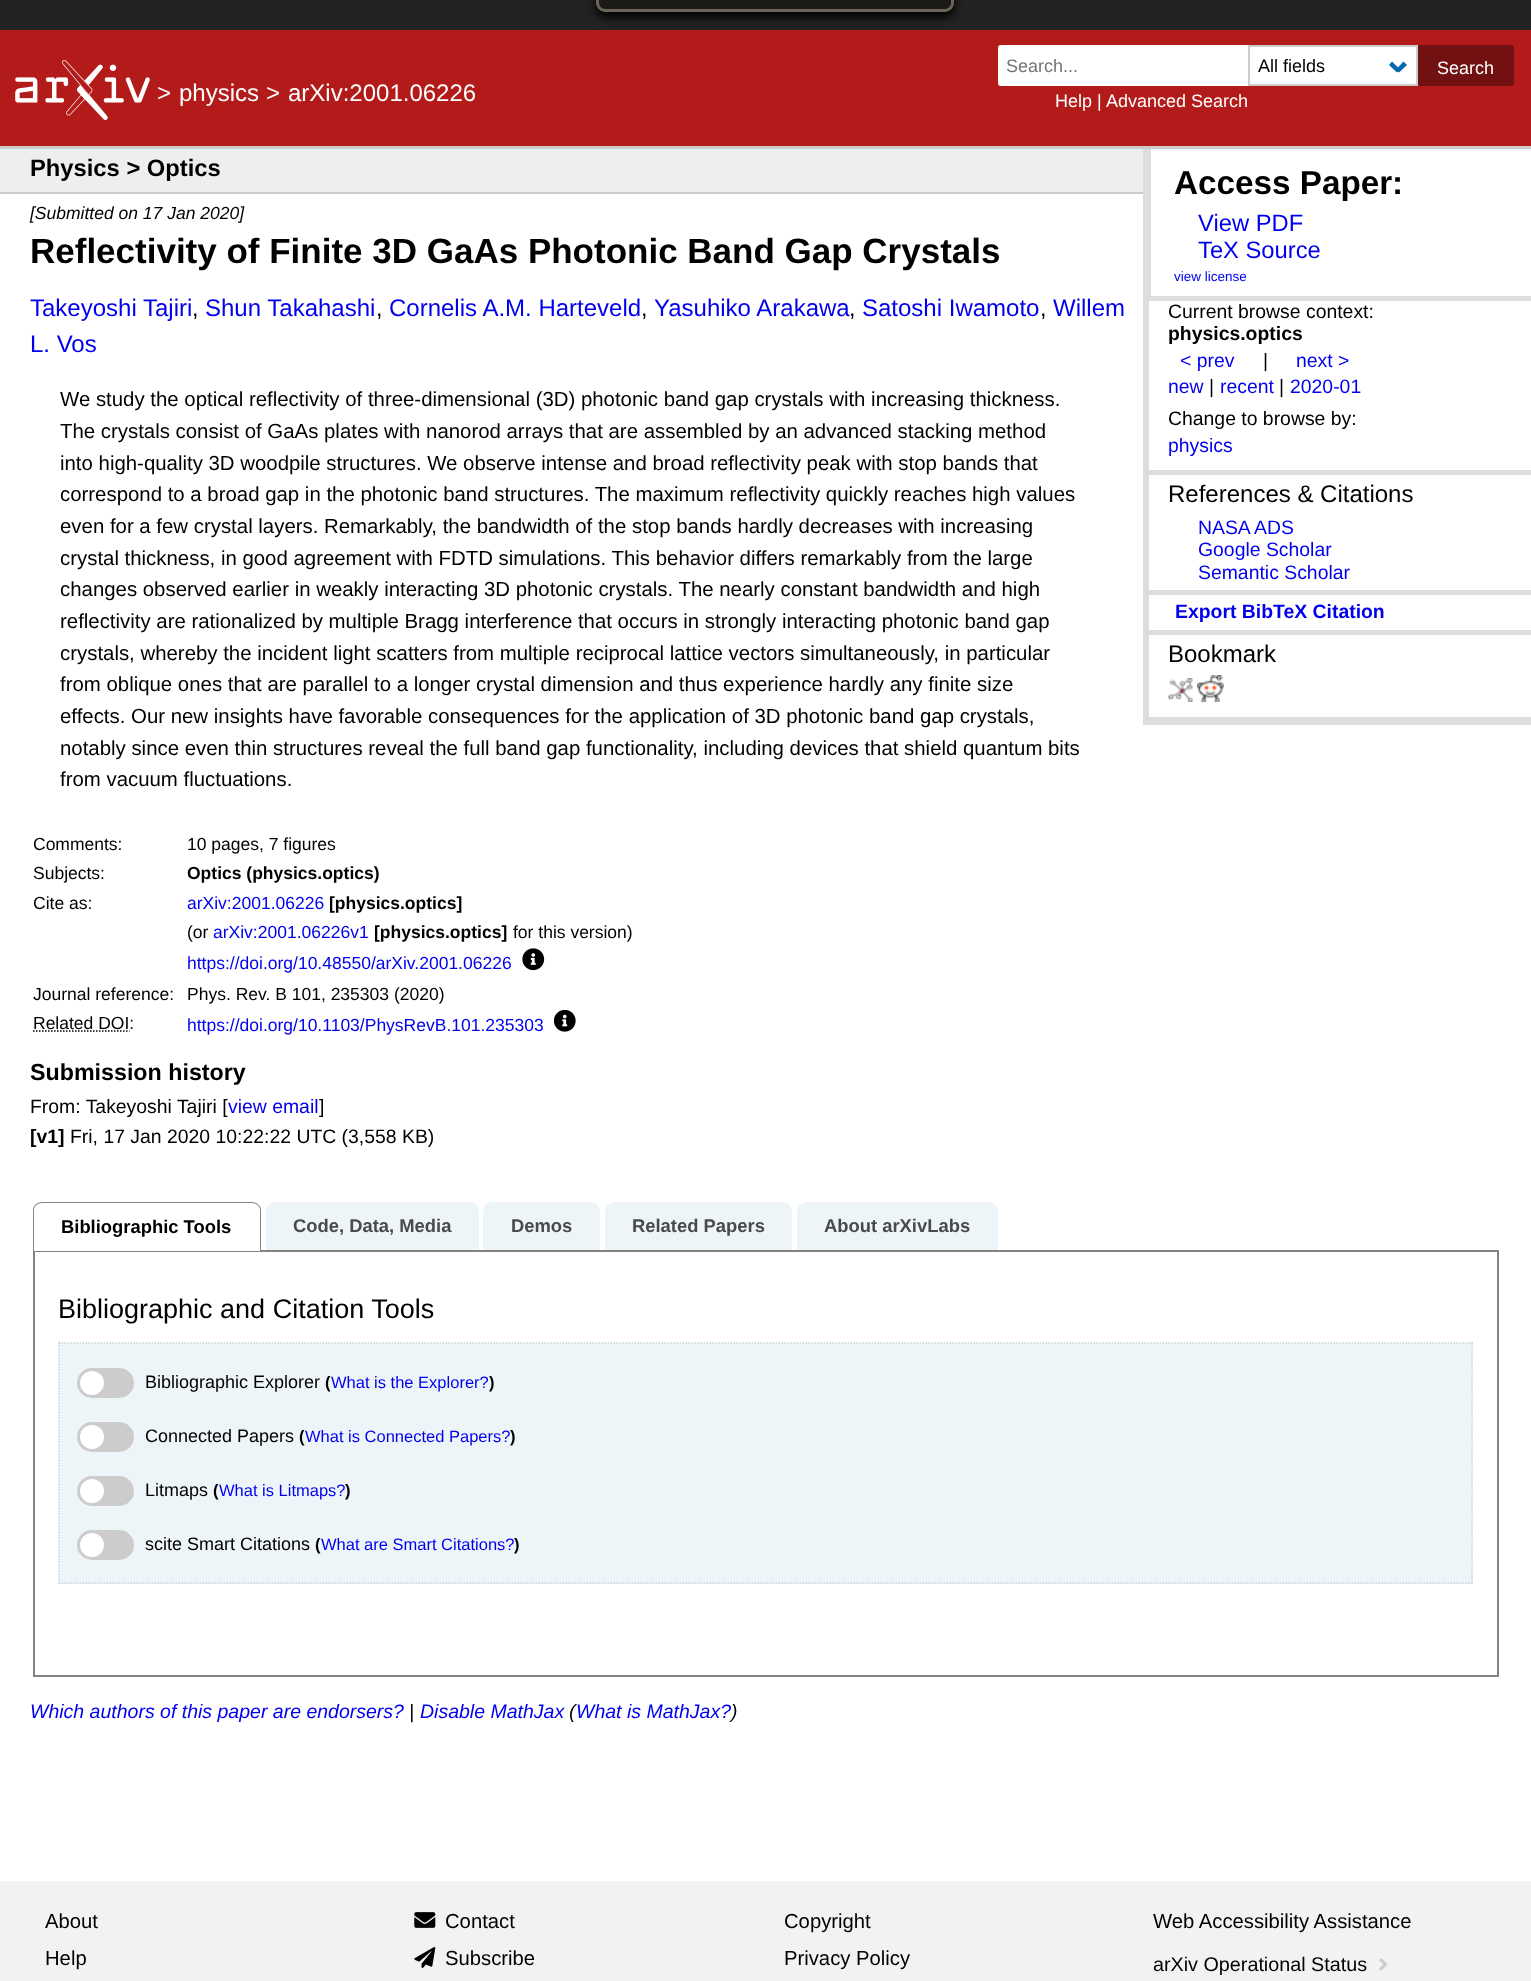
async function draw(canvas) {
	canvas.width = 1531;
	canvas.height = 1981;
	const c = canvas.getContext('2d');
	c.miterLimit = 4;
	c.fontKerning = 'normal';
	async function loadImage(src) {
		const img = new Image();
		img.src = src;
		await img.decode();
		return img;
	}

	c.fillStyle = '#fff';
	c.fillRect(0, 0, 1531, 1981);
	c.fillStyle = '#222';
	c.fillRect(0, 0, 1531, 30);
	c.fillStyle = '#000';
	c.filter = 'blur(4.5px)';
	c.beginPath();
	c.roundRect(596, -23, 358, 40, 9);
	c.fill();
	c.filter = 'none';
	c.fillStyle = '#1c1a17';
	c.beginPath();
	c.roundRect(597.5, -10.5, 355, 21, 7.5);
	c.fill();
	c.strokeStyle = '#6b6459';
	c.lineWidth = 3;
	c.stroke();
	c.fillStyle = '#b31b1b';
	c.fillRect(0, 30, 1531, 116);
	c.fillStyle = '#ccc';
	c.fillRect(0, 146, 1531, 3);
	c.drawImage(await loadImage('img1.png'), 15, 60, 135, 60);
	c.font = '24px Liberation Sans';
	c.fillStyle = '#fff';
	for (const [text, x, y] of [
		['>', 157, 101],
		['physics', 179, 101],
		['>', 266, 101],
		['arXiv:2001.06226', 288, 101],
	]) {
		c.fillText(text, x, y);
	}
	c.beginPath();
	c.roundRect(998, 45, 268, 41, [3, 0, 0, 3]);
	c.fill();
	c.font = '18px Liberation Sans';
	c.fillStyle = '#757575';
	c.fillText('Search...', 1006, 72);
	c.fillStyle = '#fff';
	for (const [text, x, y] of [
		['Help', 1055, 107],
		['|', 1097, 107],
		['Advanced Search', 1106, 107],
	]) {
		c.fillText(text, x, y);
	}
	c.fillRect(1266, 47, 150, 37);
	c.strokeStyle = '#ccc';
	c.lineWidth = 2;
	c.strokeRect(1249, 46, 168, 39);
	c.fillStyle = '#000';
	c.fillText('All fields', 1258, 72);
	c.fillStyle = '#0068ac';
	c.beginPath();
	c.moveTo(1396, 69.5);
	c.lineTo(1403.5, 61.5);
	c.lineTo(1407, 65);
	c.lineTo(1399, 72.5);
	c.closePath();
	c.fill();
	c.beginPath();
	c.moveTo(1389, 65);
	c.lineTo(1392, 61.5);
	c.lineTo(1400, 69.5);
	c.lineTo(1397, 72.5);
	c.closePath();
	c.fill();
	c.fillStyle = '#711111';
	c.beginPath();
	c.roundRect(1418, 45, 96, 41, 3);
	c.fill();
	c.fillStyle = '#fff';
	c.fillText('Search', 1437, 74);
	c.fillStyle = '#eee';
	c.fillRect(0, 149, 1143, 43);
	c.fillStyle = '#ccc';
	c.fillRect(0, 192, 1143, 2);
	c.font = 'bold 23.75px Liberation Sans';
	c.fillStyle = '#000';
	c.fillText('Physics > Optics', 30, 176);
	c.font = 'italic 17.5px Liberation Sans';
	c.fillText('[Submitted on 17 Jan 2020]', 30, 219);
	c.font = 'bold 35px Liberation Sans';
	c.fillText('Reflectivity of Finite 3D GaAs Photonic Band Gap Crystals', 30, 263);
	c.font = '24px Liberation Sans';
	c.fillStyle = '#00e';
	c.fillText('Takeyoshi Tajiri', 30, 316);
	c.font = '23.25px Liberation Sans';
	c.fillStyle = '#000';
	c.fillText(',', 192, 316);
	c.font = '24px Liberation Sans';
	c.fillStyle = '#00e';
	c.fillText('Shun Takahashi', 205, 316);
	c.font = '23.25px Liberation Sans';
	c.fillStyle = '#000';
	c.fillText(',', 376, 316);
	c.font = '24px Liberation Sans';
	c.fillStyle = '#00e';
	c.fillText('Cornelis A.M. Harteveld', 389, 316);
	c.font = '23.25px Liberation Sans';
	c.fillStyle = '#000';
	c.fillText(',', 641, 316);
	c.font = '24px Liberation Sans';
	c.fillStyle = '#00e';
	c.fillText('Yasuhiko Arakawa', 654, 316);
	c.font = '23.25px Liberation Sans';
	c.fillStyle = '#000';
	c.fillText(',', 849, 316);
	c.font = '24px Liberation Sans';
	c.fillStyle = '#00e';
	c.fillText('Satoshi Iwamoto', 862, 316);
	c.font = '23.25px Liberation Sans';
	c.fillStyle = '#000';
	c.fillText(',', 1040, 316);
	c.font = '24px Liberation Sans';
	c.fillStyle = '#00e';
	c.fillText('Willem', 1053, 316);
	c.fillText('L. Vos', 30, 352);
	c.font = '20.4px Liberation Sans';
	c.fillStyle = '#000';
	for (const [text, x, y] of [
		['We study the optical reflectivity of three-dimensional (3D) photonic band gap crystals with increasing thickness.', 60, 406],
		['The crystals consist of GaAs plates with nanorod arrays that are assembled by an advanced stacking method', 60, 438],
		['into high-quality 3D woodpile structures. We observe intense and broad reflectivity peak with stop bands that', 60, 470],
		['correspond to a broad gap in the photonic band structures. The maximum reflectivity quickly reaches high values', 60, 501],
		['even for a few crystal layers. Remarkably, the bandwidth of the stop bands hardly decreases with increasing', 60, 533],
		['crystal thickness, in good agreement with FDTD simulations. This behavior differs remarkably from the large', 60, 565],
		['changes observed earlier in weakly interacting 3D photonic crystals. The nearly constant bandwidth and high', 60, 596],
		['reflectivity are rationalized by multiple Bragg interference that occurs in strongly interacting photonic band gap', 60, 628],
		['crystals, whereby the incident light scatters from multiple reciprocal lattice vectors simultaneously, in particular', 60, 660],
		['from oblique ones that are parallel to a longer crystal dimension and thus experience hardly any finite size', 60, 691],
		['effects. Our new insights have favorable consequences for the application of 3D photonic band gap crystals,', 60, 723],
		['notably since even thin structures reveal the full band gap functionality, including devices that shield quantum bits', 60, 755],
		['from vacuum fluctuations.', 60, 786],
	]) {
		c.fillText(text, x, y);
	}
	c.font = '17.5px Liberation Sans';
	for (const [text, x, y] of [
		['Comments:', 33, 850],
		['10 pages, 7 figures', 187, 850],
		['Subjects:', 33, 879],
	]) {
		c.fillText(text, x, y);
	}
	c.font = 'bold 17.5px Liberation Sans';
	c.fillText('Optics (physics.optics)', 187, 879);
	c.font = '17.5px Liberation Sans';
	c.fillText('Cite as:', 33, 909);
	c.fillStyle = '#00e';
	c.fillText('arXiv:2001.06226', 187, 909);
	c.font = 'bold 17.5px Liberation Sans';
	c.fillStyle = '#000';
	c.fillText('[physics.optics]', 329, 909);
	c.font = '17.5px Liberation Sans';
	c.fillText('(or', 187, 938);
	c.fillStyle = '#00e';
	c.fillText('arXiv:2001.06226v1', 213, 938);
	c.font = 'bold 17.5px Liberation Sans';
	c.fillStyle = '#000';
	c.fillText('[physics.optics]', 374, 938);
	c.font = '17.5px Liberation Sans';
	c.fillText('for this version)', 513, 938);
	c.fillStyle = '#00e';
	c.fillText('https://doi.org/10.48550/arXiv.2001.06226', 187, 969);
	c.drawImage(await loadImage('img2.png'), 522, 948, 23, 23);
	c.fillStyle = '#000';
	for (const [text, x, y] of [
		['Journal reference:', 33, 1000],
		['Phys. Rev. B 101, 235303 (2020)', 187, 1000],
		['Related DOI:', 33, 1029],
	]) {
		c.fillText(text, x, y);
	}
	c.beginPath();
	c.moveTo(33, 1031);
	c.lineTo(129.5, 1031);
	c.strokeStyle = '#000';
	c.lineWidth = 1.5;
	c.setLineDash([1.5, 1.5]);
	c.stroke();
	c.fillStyle = '#00e';
	c.fillText('https://doi.org/10.1103/PhysRevB.101.235303', 187, 1031);
	c.drawImage(await loadImage('img3.png'), 554, 1010, 22, 22);
	c.font = 'bold 23.25px Liberation Sans';
	c.fillStyle = '#000';
	c.fillText('Submission history', 30, 1080);
	c.font = '19.4px Liberation Sans';
	c.fillText('From: Takeyoshi Tajiri [', 30, 1113);
	c.fillStyle = '#00e';
	c.fillText('view email', 228, 1113);
	c.fillStyle = '#000';
	c.fillText(']', 319, 1113);
	c.font = 'bold 19.4px Liberation Sans';
	c.fillText('[v1]', 30, 1143);
	c.font = '19.4px Liberation Sans';
	c.fillText('Fri, 17 Jan 2020 10:22:22 UTC (3,558 KB)', 70, 1143);
	for (const [x, y, w, h, color] of [
		[1143, 717, 388, 8, '#ddd'],
		[1143, 296, 388, 5, '#ddd'],
		[1143, 149, 8, 151, '#ddd'],
	]) {
		c.fillStyle = color;
		c.fillRect(x, y, w, h);
	}
	c.font = 'bold 33.25px Liberation Sans';
	c.fillStyle = '#000';
	c.fillText('Access Paper:', 1174, 194);
	c.font = '23.75px Liberation Sans';
	c.fillStyle = '#00e';
	c.fillText('View PDF', 1198, 231);
	c.fillText('TeX Source', 1198, 258);
	c.font = '13.5px Liberation Sans';
	c.fillText('view license', 1174, 281);
	c.fillStyle = '#ddd';
	c.fillRect(1143, 470, 388, 5);
	c.fillRect(1143, 300, 6, 174);
	c.font = '19.4px Liberation Sans';
	c.fillStyle = '#000';
	c.fillText('Current browse context:', 1168, 318);
	c.font = 'bold 19.4px Liberation Sans';
	c.fillText('physics.optics', 1168, 340);
	c.font = '19.4px Liberation Sans';
	c.fillStyle = '#00e';
	c.fillText('< prev', 1180, 367);
	c.fillStyle = '#000';
	c.fillText('|', 1263, 367);
	c.fillStyle = '#00e';
	c.fillText('next >', 1296, 367);
	c.fillText('new', 1168, 393);
	c.fillStyle = '#000';
	c.fillText('|', 1209, 393);
	c.fillStyle = '#00e';
	c.fillText('recent', 1220, 393);
	c.fillStyle = '#000';
	c.fillText('|', 1279, 393);
	c.fillStyle = '#00e';
	c.fillText('2020-01', 1290, 393);
	c.fillStyle = '#000';
	c.fillText('Change to browse by:', 1168, 425);
	c.fillStyle = '#00e';
	c.fillText('physics', 1168, 452);
	c.fillStyle = '#ddd';
	c.fillRect(1143, 590, 388, 5);
	c.fillRect(1143, 474, 6, 120);
	c.font = '24px Liberation Sans';
	c.fillStyle = '#000';
	c.fillText('References & Citations', 1168, 502);
	c.font = '19.4px Liberation Sans';
	c.fillStyle = '#00e';
	for (const [text, x, y] of [
		['NASA ADS', 1198, 534],
		['Google Scholar', 1198, 556],
		['Semantic Scholar', 1198, 579],
	]) {
		c.fillText(text, x, y);
	}
	c.fillStyle = '#ddd';
	c.fillRect(1143, 630, 388, 5);
	c.fillRect(1143, 594, 6, 123);
	c.font = 'bold 19.4px Liberation Sans';
	c.fillStyle = '#00e';
	c.fillText('Export BibTeX Citation', 1175, 618);
	c.font = '24px Liberation Sans';
	c.fillStyle = '#000';
	c.fillText('Bookmark', 1168, 662);
	c.drawImage(await loadImage('img4.png'), 1168, 678, 25, 24);
	c.drawImage(await loadImage('img5.png'), 1197, 675, 27, 27);
	c.fillStyle = '#eef5f9';
	c.beginPath();
	c.roundRect(266, 1202, 213, 49, [9, 9, 0, 0]);
	c.fill();
	c.beginPath();
	c.roundRect(483, 1202, 117, 49, [9, 9, 0, 0]);
	c.fill();
	c.beginPath();
	c.roundRect(605, 1202, 187, 49, [9, 9, 0, 0]);
	c.fill();
	c.beginPath();
	c.roundRect(797, 1202, 201, 49, [9, 9, 0, 0]);
	c.fill();
	c.strokeStyle = '#828282';
	c.lineWidth = 2;
	c.setLineDash([]);
	c.strokeRect(34, 1251, 1464, 425);
	c.fillStyle = '#fff';
	c.beginPath();
	c.roundRect(33, 1202, 228, 49, [9, 9, 0, 0]);
	c.fill();
	c.fillStyle = '#828282';
	c.beginPath();
	c.moveTo(42, 1202);
	c.lineTo(252, 1202);
	c.bezierCurveTo(257, 1202, 261, 1206, 261, 1210);
	c.lineTo(261, 1251);
	c.lineTo(33, 1251);
	c.lineTo(33, 1210);
	c.bezierCurveTo(33, 1206, 37, 1202, 42, 1202);
	c.closePath();
	c.moveTo(42, 1203);
	c.lineTo(252, 1203);
	c.bezierCurveTo(256, 1203, 260, 1206, 260, 1210);
	c.lineTo(260, 1251);
	c.lineTo(34, 1251);
	c.lineTo(34, 1210);
	c.bezierCurveTo(34, 1206, 38, 1203, 42, 1203);
	c.closePath();
	c.fill('evenodd');
	c.font = 'bold 18.4px Liberation Sans';
	c.fillStyle = '#000';
	c.fillText('Bibliographic Tools', 61, 1233);
	c.fillStyle = '#4a4a4a';
	for (const [text, x, y] of [
		['Code, Data, Media', 293, 1232],
		['Demos', 511, 1232],
		['Related Papers', 632, 1232],
		['About arXivLabs', 824, 1232],
	]) {
		c.fillText(text, x, y);
	}
	c.font = '27px Liberation Sans';
	c.fillStyle = '#000';
	c.fillText('Bibliographic and Citation Tools', 58, 1318);
	c.fillStyle = '#eef5f9';
	c.fillRect(59, 1343, 1414, 241);
	c.beginPath();
	c.moveTo(58.5, 1343);
	c.lineTo(1473, 1343);
	c.strokeStyle = '#c7d3db';
	c.lineWidth = 1.5;
	c.setLineDash([1.5, 1.5]);
	c.stroke();
	c.beginPath();
	c.moveTo(1472, 1342.5);
	c.lineTo(1472, 1584);
	c.stroke();
	c.beginPath();
	c.moveTo(58.5, 1583);
	c.lineTo(1473, 1583);
	c.stroke();
	c.beginPath();
	c.moveTo(59, 1342.5);
	c.lineTo(59, 1584);
	c.stroke();
	c.fillStyle = '#ccc';
	c.beginPath();
	c.roundRect(77, 1368, 57, 30, 15);
	c.fill();
	c.fillStyle = '#fff';
	c.beginPath();
	c.arc(92, 1383, 12, 0, 2 * Math.PI);
	c.fill();
	c.font = '18px Liberation Sans';
	c.fillStyle = '#000';
	c.fillText('Bibliographic Explorer', 145, 1388);
	c.font = 'bold 16.5px Liberation Sans';
	c.fillText('(', 325, 1388);
	c.font = '16.5px Liberation Sans';
	c.fillStyle = '#00e';
	c.fillText('What is the Explorer?', 331, 1388);
	c.font = 'bold 16.5px Liberation Sans';
	c.fillStyle = '#000';
	c.fillText(')', 489, 1388);
	c.fillStyle = '#ccc';
	c.beginPath();
	c.roundRect(77, 1422, 57, 30, 15);
	c.fill();
	c.fillStyle = '#fff';
	c.beginPath();
	c.arc(92, 1437, 12, 0, 2 * Math.PI);
	c.fill();
	c.font = '18px Liberation Sans';
	c.fillStyle = '#000';
	c.fillText('Connected Papers', 145, 1442);
	c.font = 'bold 16.5px Liberation Sans';
	c.fillText('(', 299, 1442);
	c.font = '16.5px Liberation Sans';
	c.fillStyle = '#00e';
	c.fillText('What is Connected Papers?', 305, 1442);
	c.font = 'bold 16.5px Liberation Sans';
	c.fillStyle = '#000';
	c.fillText(')', 510, 1442);
	c.fillStyle = '#ccc';
	c.beginPath();
	c.roundRect(77, 1476, 57, 30, 15);
	c.fill();
	c.fillStyle = '#fff';
	c.beginPath();
	c.arc(92, 1491, 12, 0, 2 * Math.PI);
	c.fill();
	c.font = '18px Liberation Sans';
	c.fillStyle = '#000';
	c.fillText('Litmaps', 145, 1496);
	c.font = 'bold 16.5px Liberation Sans';
	c.fillText('(', 213, 1496);
	c.font = '16.5px Liberation Sans';
	c.fillStyle = '#00e';
	c.fillText('What is Litmaps?', 219, 1496);
	c.font = 'bold 16.5px Liberation Sans';
	c.fillStyle = '#000';
	c.fillText(')', 345, 1496);
	c.fillStyle = '#ccc';
	c.beginPath();
	c.roundRect(77, 1530, 57, 30, 15);
	c.fill();
	c.fillStyle = '#fff';
	c.beginPath();
	c.arc(92, 1545, 12, 0, 2 * Math.PI);
	c.fill();
	c.font = '18px Liberation Sans';
	c.fillStyle = '#000';
	c.fillText('scite Smart Citations', 145, 1550);
	c.font = 'bold 16.5px Liberation Sans';
	c.fillText('(', 315, 1550);
	c.font = '16.5px Liberation Sans';
	c.fillStyle = '#00e';
	c.fillText('What are Smart Citations?', 321, 1550);
	c.font = 'bold 16.5px Liberation Sans';
	c.fillStyle = '#000';
	c.fillText(')', 514, 1550);
	c.font = 'italic 19.5px Liberation Sans';
	c.fillStyle = '#00e';
	c.fillText('Which authors of this paper are endorsers?', 30, 1718);
	c.fillStyle = '#000';
	c.fillText('|', 409, 1718);
	c.fillStyle = '#00e';
	c.fillText('Disable MathJax', 420, 1718);
	c.fillStyle = '#000';
	c.fillText('(', 569, 1718);
	c.fillStyle = '#00e';
	c.fillText('What is MathJax?', 576, 1718);
	c.fillStyle = '#000';
	c.fillText(')', 731, 1718);
	c.fillStyle = '#f2f2f2';
	c.fillRect(0, 1881, 1531, 100);
	c.font = '20.25px Liberation Sans';
	c.fillStyle = '#000';
	c.fillText('About', 45, 1928);
	c.fillText('Help', 45, 1965);
	c.drawImage(await loadImage('img6.png'), 414, 1912, 22, 16);
	c.fillText('Contact', 445, 1928);
	c.drawImage(await loadImage('img7.png'), 414, 1947, 22, 21);
	for (const [text, x, y] of [
		['Subscribe', 445, 1965],
		['Copyright', 784, 1928],
		['Privacy Policy', 784, 1965],
		['Web Accessibility Assistance', 1153, 1928],
	]) {
		c.fillText(text, x, y);
	}
	c.font = '19.75px Liberation Sans';
	c.fillText('arXiv Operational Status', 1153, 1971);
	c.drawImage(await loadImage('img8.png'), 1379, 1958, 9, 13);
}

draw(document.querySelector('canvas'));
